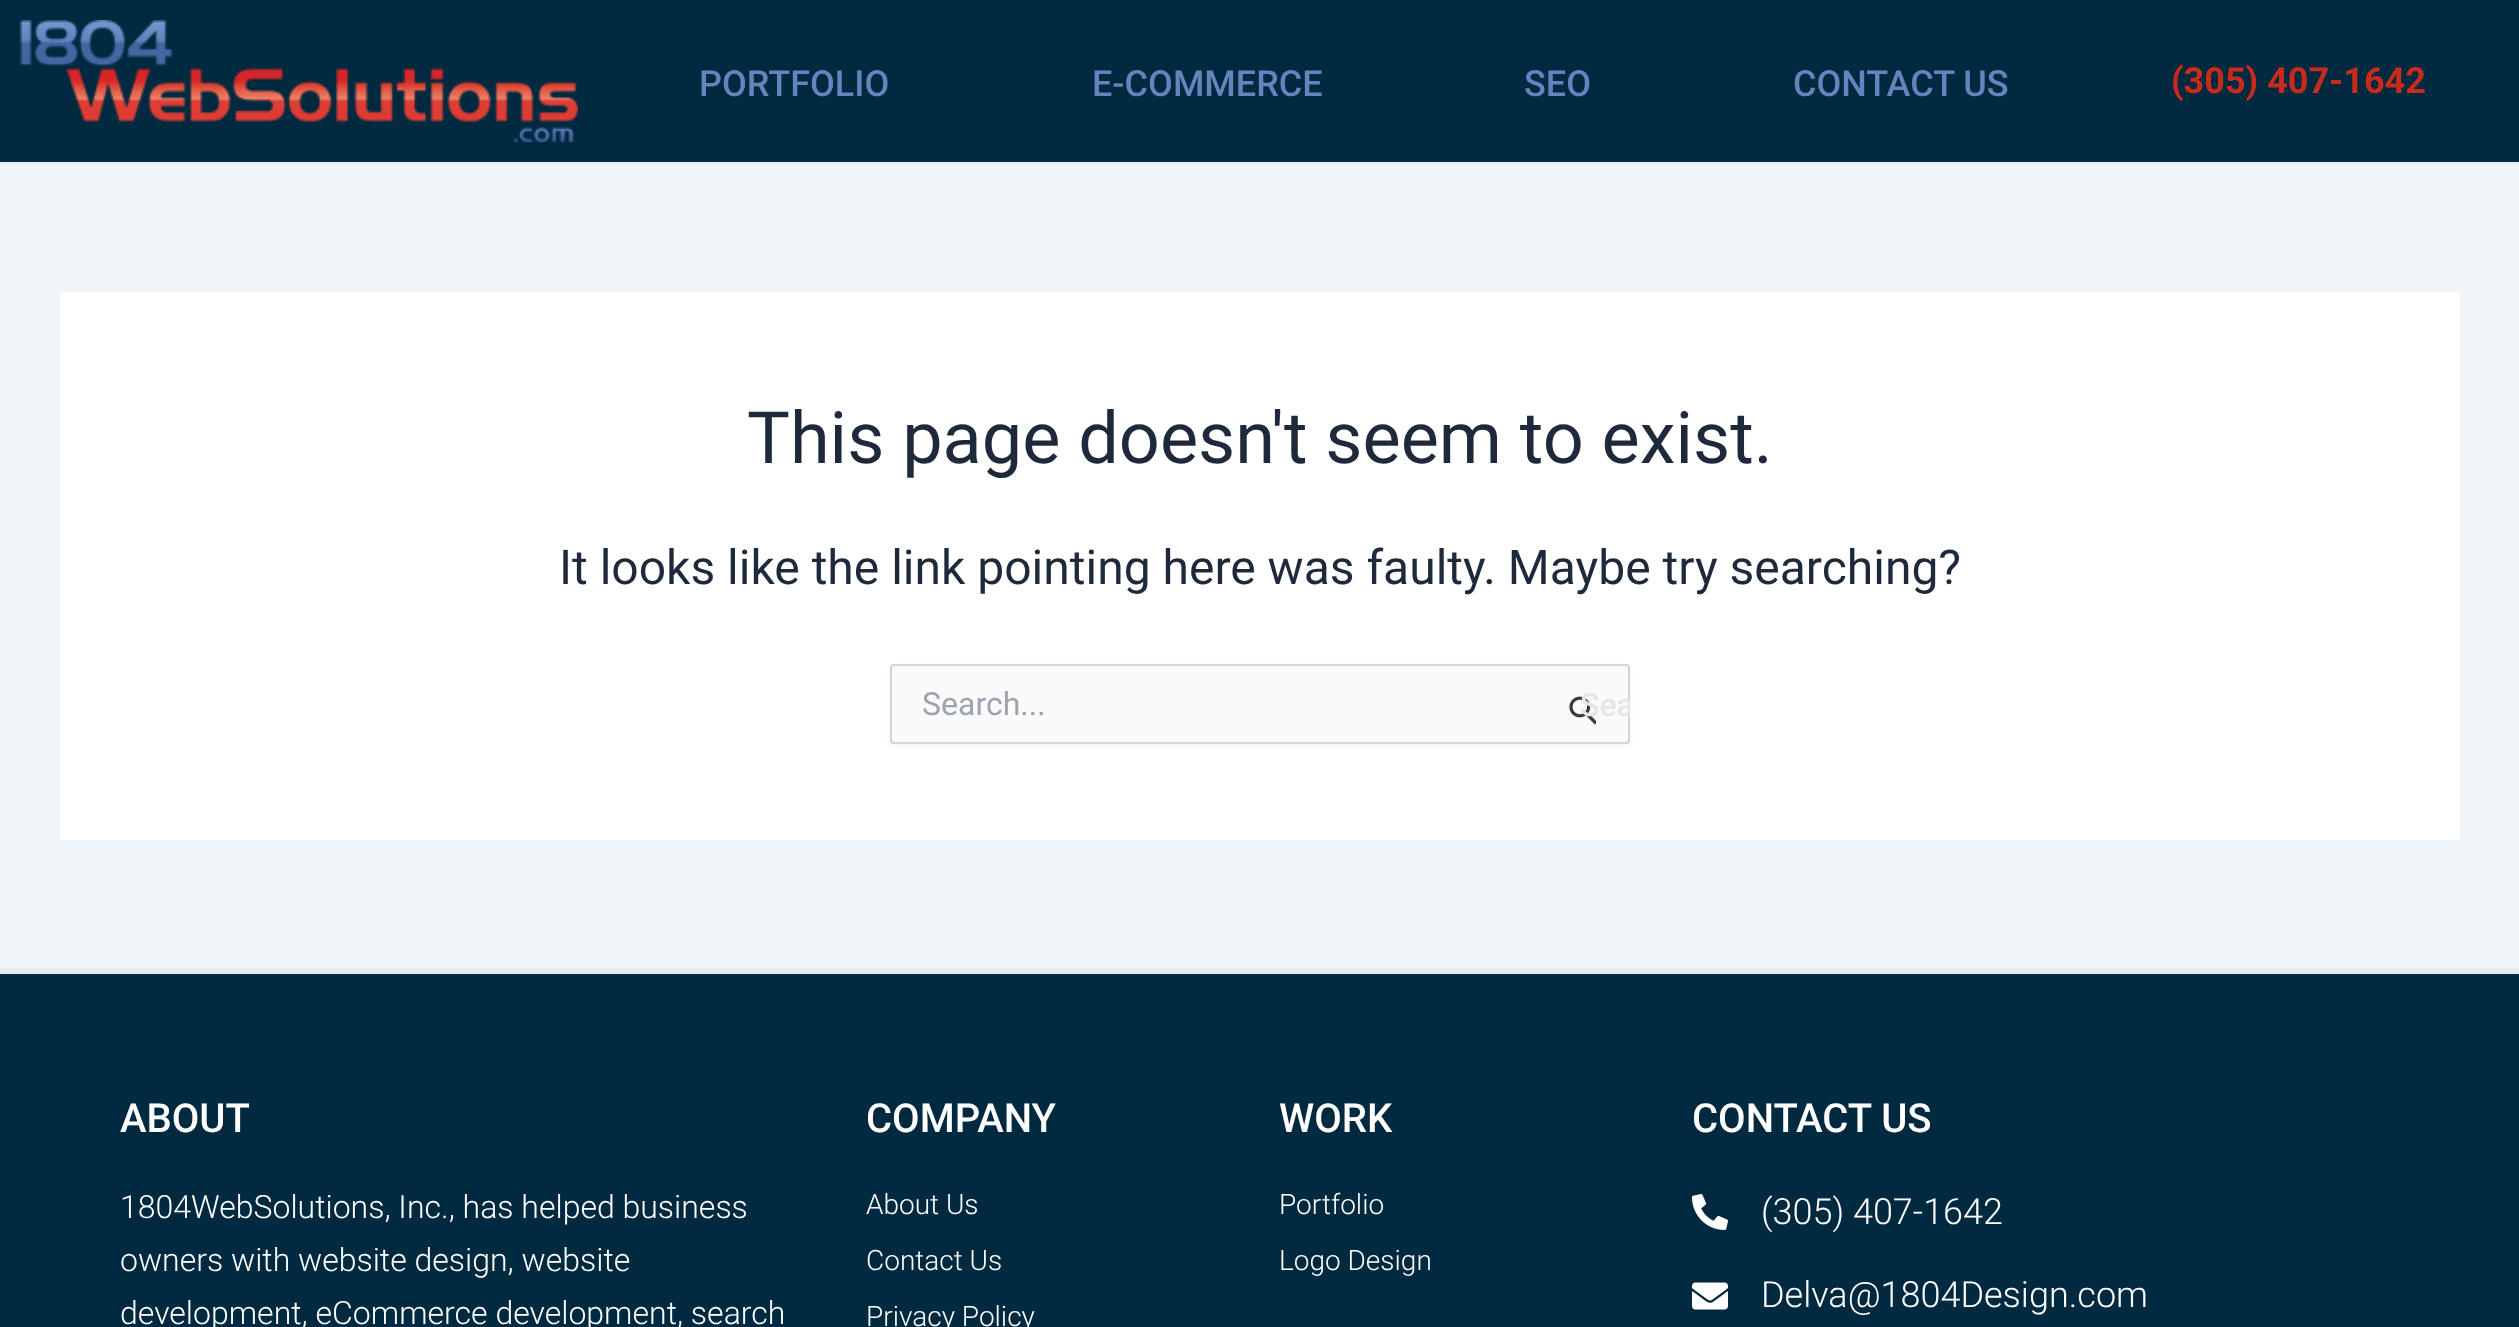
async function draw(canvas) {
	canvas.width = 2519;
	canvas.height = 1327;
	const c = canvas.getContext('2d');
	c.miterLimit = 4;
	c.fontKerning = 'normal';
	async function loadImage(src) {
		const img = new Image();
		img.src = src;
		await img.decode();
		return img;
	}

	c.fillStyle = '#f0f5fa';
	c.fillRect(0, 0, 2519, 1327);
	c.fillStyle = '#012a40';
	c.fillRect(0, 0, 2519, 162);
	c.fillStyle = '#eaeaea';
	c.fillRect(0, 162, 2519, 2);
	c.drawImage(await loadImage('img1.png'), 20, 20, 558, 122);
	c.font = '500 36px Roboto';
	c.fillStyle = '#6484bd';
	for (const [text, x, y] of [
		['PORTFOLIO', 699, 96],
		['E-COMMERCE', 1092, 96],
		['SEO', 1524, 96],
		['CONTACT US', 1793, 96],
	]) {
		c.fillText(text, x, y);
	}
	c.font = 'bold 36px Roboto';
	c.fillStyle = '#c82b1c';
	c.fillText('(305) 407-1642', 2171, 93);
	c.fillStyle = '#fff';
	c.fillRect(60, 292, 2400, 548);
	c.font = '72px Roboto';
	c.fillStyle = '#1e293b';
	c.fillText('This page doesn\'t seem to exist.', 747, 463);
	c.font = '48px Roboto';
	c.fillText('It looks like the link pointing here was faulty. Maybe try searching?', 559, 584);
	c.fillStyle = '#0000000d';
	c.filter = 'blur(2px)';
	c.beginPath();
	c.roundRect(890, 666, 740, 80, 4);
	c.fill();
	c.filter = 'none';
	c.fillStyle = '#fafafa';
	c.beginPath();
	c.roundRect(891, 665, 738, 78, 3);
	c.fill();
	c.strokeStyle = '#d1d5db';
	c.lineWidth = 2;
	c.stroke();
	c.font = '32px Roboto';
	c.fillStyle = '#9ca3af';
	c.fillText('Search...', 922, 715);
	c.drawImage(await loadImage('img2.png'), 1569, 696, 27, 29);
	c.save();
	c.beginPath();
	c.roundRect(1540, 664, 90, 84, 4);
	c.clip();
	c.font = '500 32px Roboto';
	c.fillStyle = '#e5e5e6';
	c.fillText('Sea', 1580, 716);
	c.restore();
	c.fillStyle = '#eaeaea';
	c.fillRect(0, 968, 2519, 6);
	c.fillStyle = '#012a40';
	c.fillRect(0, 974, 2519, 353);
	c.font = '500 40px Roboto';
	c.fillStyle = '#fff';
	c.fillText('ABOUT', 120, 1132);
	c.font = '300 32px Roboto';
	for (const [text, x, y] of [
		['1804WebSolutions, Inc., has helped business', 120, 1218],
		['owners with website design, website', 120, 1271],
		['development, eCommerce development, search', 120, 1324],
	]) {
		c.fillText(text, x, y);
	}
	c.font = '500 40px Roboto';
	c.fillText('COMPANY', 866, 1132);
	c.font = '300 28px Roboto';
	for (const [text, x, y] of [
		['About Us', 866, 1214],
		['Contact Us', 866, 1270],
		['Privacy Policy', 866, 1326],
	]) {
		c.fillText(text, x, y);
	}
	c.font = '500 40px Roboto';
	c.fillText('WORK', 1279, 1132);
	c.font = '300 28px Roboto';
	c.fillText('Portfolio', 1279, 1214);
	c.fillText('Logo Design', 1279, 1270);
	c.font = '500 40px Roboto';
	c.fillText('CONTACT US', 1692, 1132);
	c.drawImage(await loadImage('img3.png'), 1692, 1194, 36, 36);
	c.font = '300 36px Roboto';
	c.fillText('(305) 407-1642', 1761, 1224);
	c.drawImage(await loadImage('img4.png'), 1692, 1282, 36, 28);
	c.fillText('Delva@1804Design.com', 1761, 1307);
}

draw(document.querySelector('canvas'));
